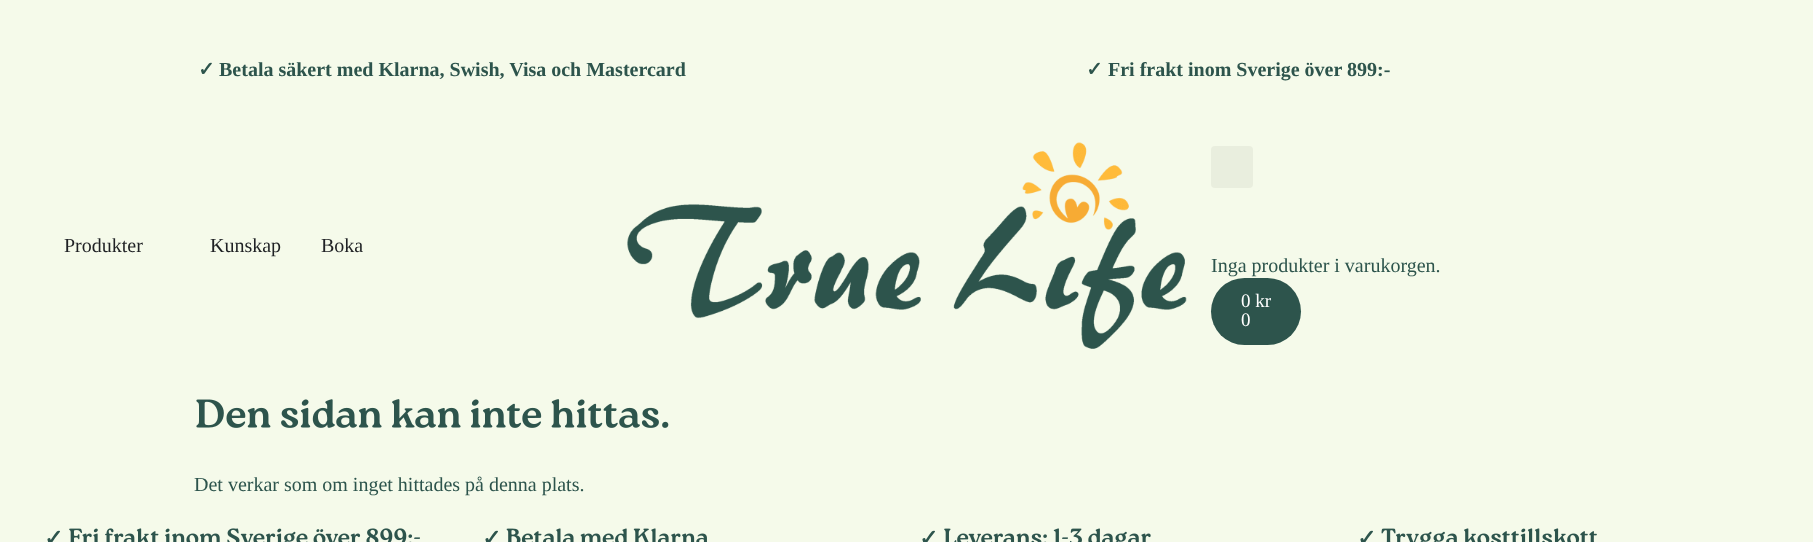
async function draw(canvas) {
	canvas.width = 1813;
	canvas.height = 542;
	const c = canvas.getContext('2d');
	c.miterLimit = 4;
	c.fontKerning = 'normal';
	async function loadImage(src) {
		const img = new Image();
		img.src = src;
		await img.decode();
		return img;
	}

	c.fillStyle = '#f5faea';
	c.fillRect(0, 0, 1813, 542);
	c.font = 'bold 20px DejaVu Sans';
	c.fillStyle = '#2d544c';
	c.fillText('✓', 198, 76);
	c.font = 'bold 20px Liberation Serif';
	c.fillText('Betala säkert med Klarna, Swish, Visa och Mastercard', 219, 76);
	c.font = 'bold 20px DejaVu Sans';
	c.fillText('✓', 1086, 76);
	c.font = 'bold 20px Liberation Serif';
	c.fillText('Fri frakt inom Sverige över 899:-', 1108, 76);
	c.font = '20px Liberation Serif';
	c.fillStyle = '#1f2124';
	for (const [text, x, y] of [
		['Produkter', 64, 252],
		['Kunskap', 210, 252],
		['Boka', 321, 252],
	]) {
		c.fillText(text, x, y);
	}
	c.drawImage(await loadImage('img1.png'), 627, 142, 560, 207);
	c.fillStyle = '#e9eede';
	c.beginPath();
	c.roundRect(1211, 146, 42, 42, 4);
	c.fill();
	c.fillStyle = '#2d544c';
	c.fillText('Inga produkter i varukorgen.', 1211, 272);
	c.beginPath();
	c.roundRect(1211, 278, 90, 67, 33.5);
	c.fill();
	c.font = '19px Liberation Serif';
	c.fillStyle = '#fff';
	c.fillText('0 kr', 1241, 307);
	c.fillText('0', 1241, 326);
	c.drawImage(await loadImage('img2.png'), 196, 399, 473, 29);
	c.font = '20px Liberation Serif';
	c.fillStyle = '#2d544c';
	c.fillText('Det verkar som om inget hittades på denna plats.', 194, 491);
	c.font = 'bold 23px DejaVu Sans';
	c.fillText('✓', 44, 546);
	c.drawImage(await loadImage('img3.png'), 69, 528, 351, 14);
	c.fillText('✓', 482, 546);
	c.drawImage(await loadImage('img4.png'), 506, 528, 201, 14);
	c.fillText('✓', 919, 546);
	c.drawImage(await loadImage('img5.png'), 944, 528, 207, 14);
	c.fillText('✓', 1357, 546);
	c.drawImage(await loadImage('img6.png'), 1381, 528, 216, 14);
}

draw(document.querySelector('canvas'));
